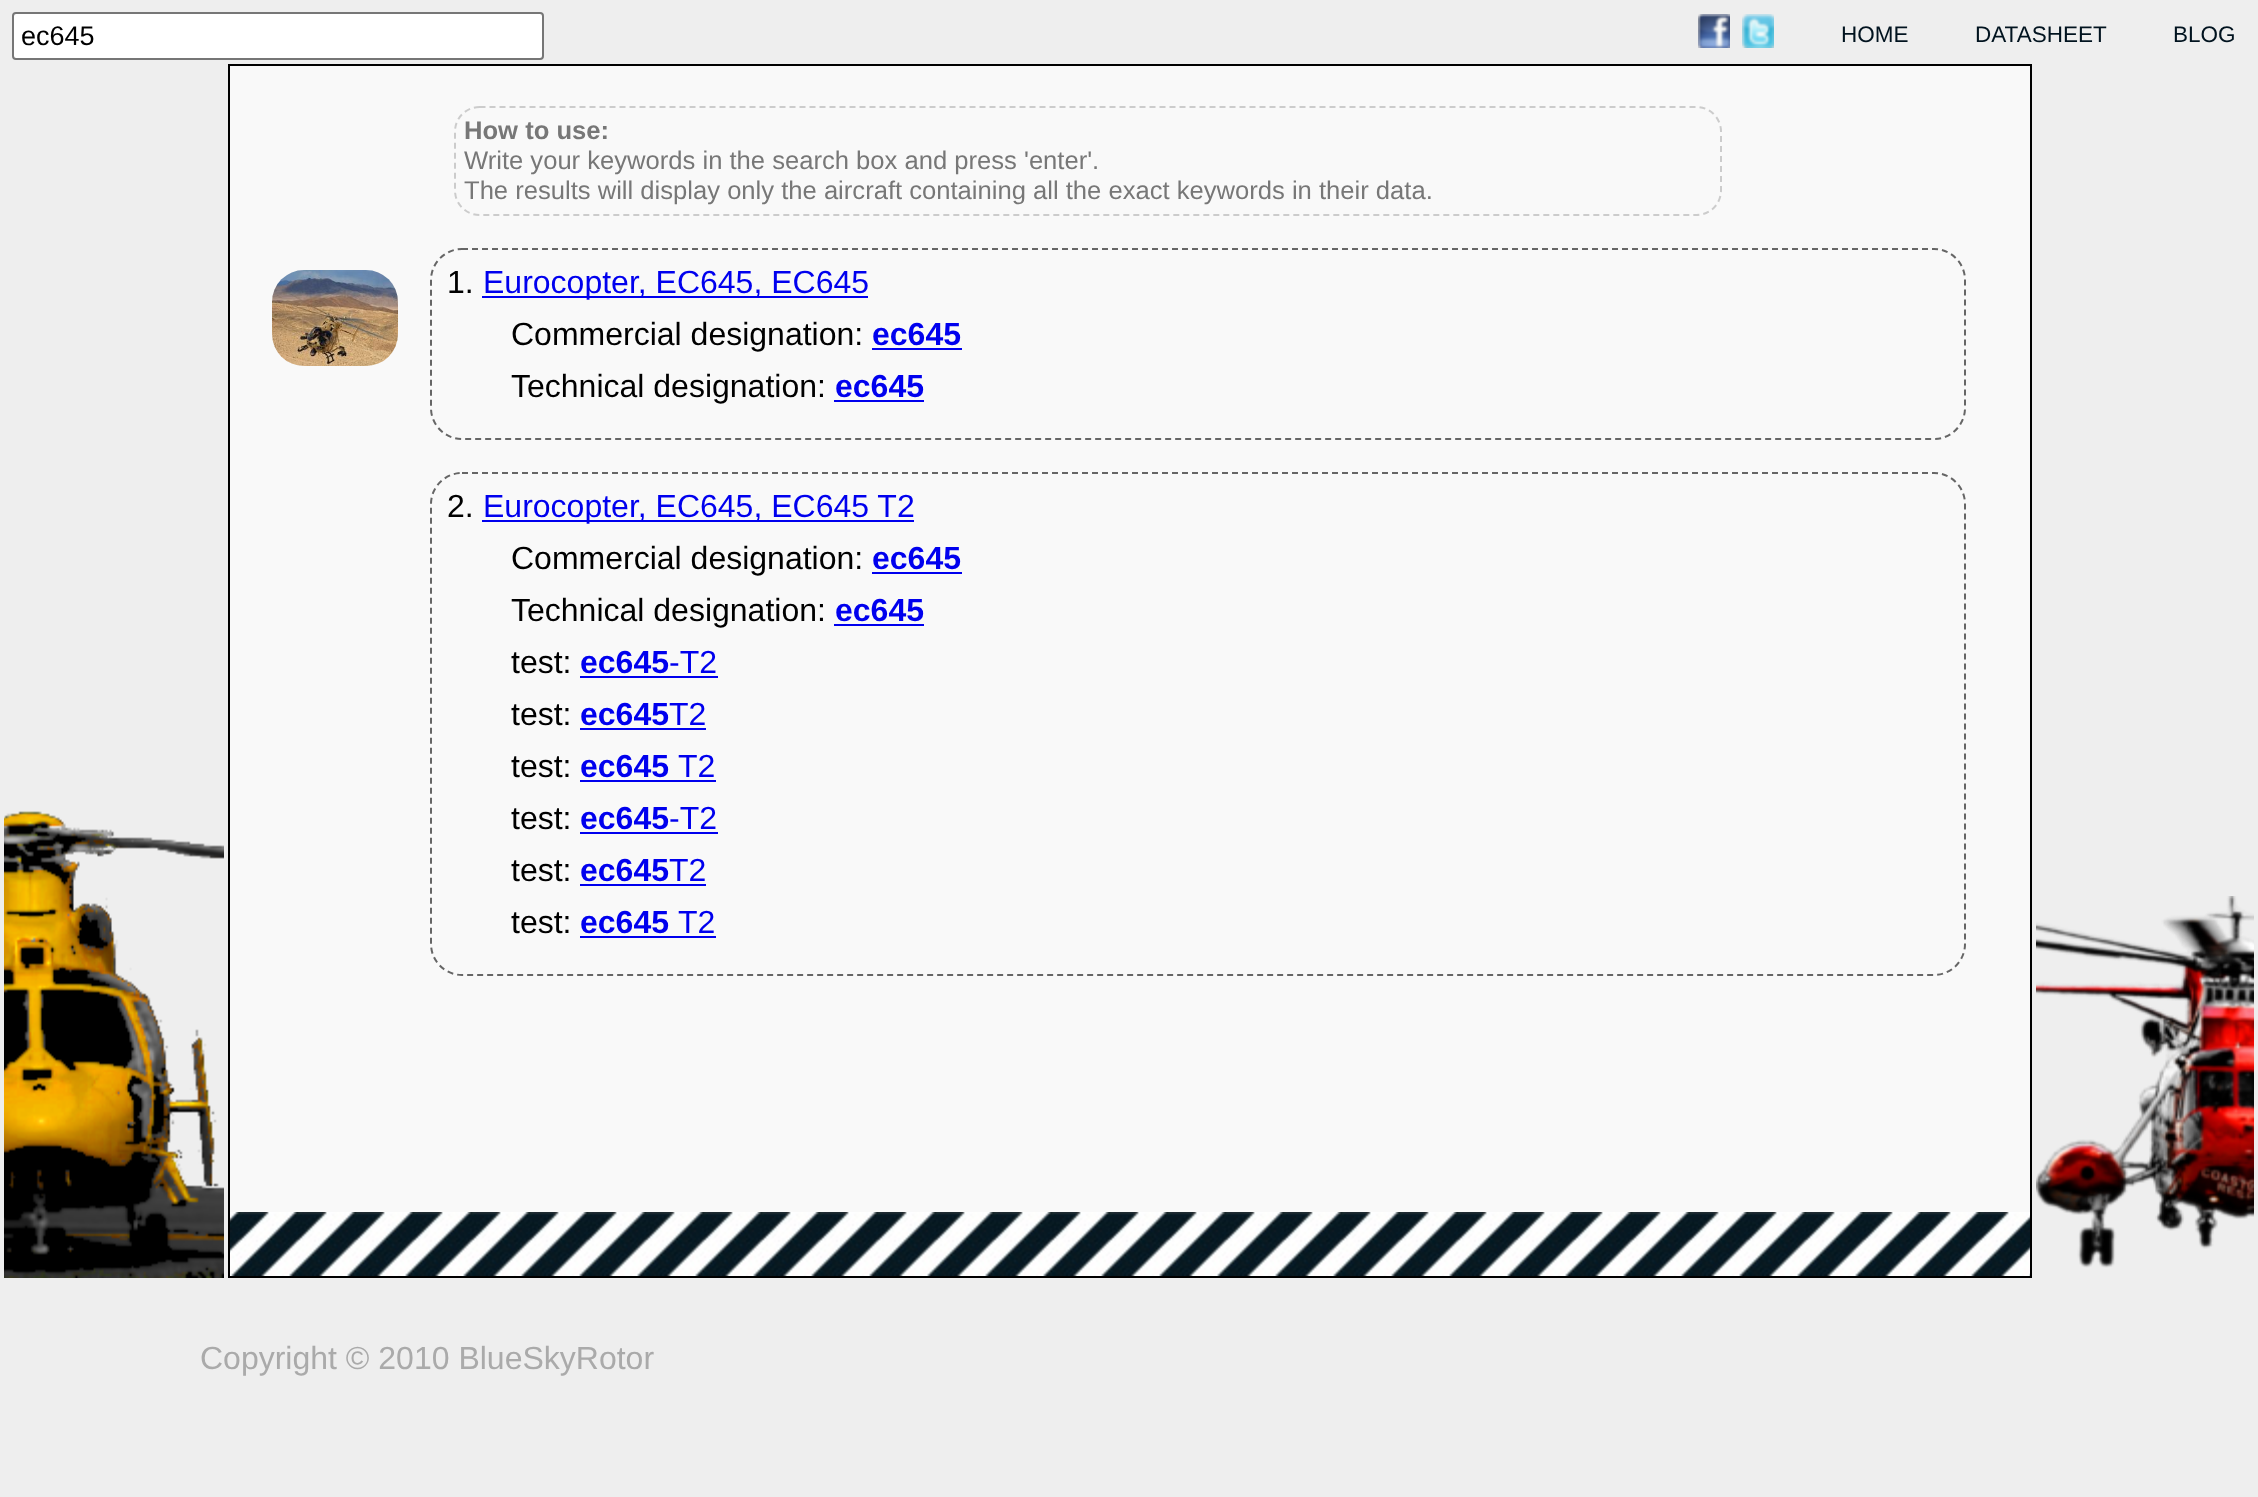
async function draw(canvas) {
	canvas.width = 2258;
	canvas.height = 1497;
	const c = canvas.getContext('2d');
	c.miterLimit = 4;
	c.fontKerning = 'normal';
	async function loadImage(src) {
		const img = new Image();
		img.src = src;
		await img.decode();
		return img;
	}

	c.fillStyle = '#eee';
	c.fillRect(0, 0, 2258, 1497);
	c.fillStyle = '#fff';
	c.beginPath();
	c.roundRect(13, 13, 530, 46, 3);
	c.fill();
	c.strokeStyle = '#767676';
	c.lineWidth = 2;
	c.stroke();
	c.font = '27px Liberation Sans';
	c.fillStyle = '#000';
	c.fillText('ec645', 21, 45);
	c.drawImage(await loadImage('img1.png'), 1698, 14, 32, 34);
	c.drawImage(await loadImage('img2.png'), 1742, 14, 32, 34);
	c.font = '22.5px Liberation Sans';
	c.fillStyle = '#01131f';
	for (const [text, x, y] of [
		['HOME', 1841, 42],
		['DATASHEET', 1975, 42],
		['BLOG', 2173, 42],
	]) {
		c.fillText(text, x, y);
	}
	c.fillStyle = '#f9f9f9';
	c.fillRect(230, 66, 1800, 1146);
	c.drawImage(await loadImage('img3.png'), 230, 1212, 1800, 64);
	c.strokeStyle = '#000';
	c.strokeRect(229, 65, 1802, 1212);
	c.beginPath();
	c.moveTo(479.5, 107);
	c.lineTo(1696.5, 107);
	c.bezierCurveTo(1710, 107, 1721, 118, 1721, 131.5);
	c.lineTo(1721, 190.5);
	c.bezierCurveTo(1721, 204, 1710, 215, 1696.5, 215);
	c.lineTo(479.5, 215);
	c.bezierCurveTo(466, 215, 455, 204, 455, 190.5);
	c.lineTo(455, 131.5);
	c.bezierCurveTo(455, 118, 466, 107, 479.5, 107);
	c.closePath();
	c.strokeStyle = '#ccc';
	c.setLineDash([6, 4]);
	c.stroke();
	c.font = 'bold 25.6px Liberation Sans';
	c.fillStyle = '#777';
	c.fillText('How to use:', 464, 139);
	c.font = '25.6px Liberation Sans';
	c.fillText('Write your keywords in the search box and press \'enter\'.', 464, 169);
	c.fillText('The results will display only the aircraft containing all the exact keywords in their data.', 464, 199);
	c.beginPath();
	c.moveTo(462, 249);
	c.lineTo(1934, 249);
	c.bezierCurveTo(1951, 249, 1965, 263, 1965, 280);
	c.lineTo(1965, 408);
	c.bezierCurveTo(1965, 425, 1951, 439, 1934, 439);
	c.lineTo(462, 439);
	c.bezierCurveTo(445, 439, 431, 425, 431, 408);
	c.lineTo(431, 280);
	c.bezierCurveTo(431, 263, 445, 249, 462, 249);
	c.closePath();
	c.strokeStyle = '#666';
	c.stroke();
	c.drawImage(await loadImage('img4.png'), 272, 270, 126, 96);
	c.font = '32px Liberation Sans';
	c.fillStyle = '#000';
	c.fillText('1.', 447, 293);
	c.fillStyle = '#00e';
	c.fillRect(482, 296, 386, 2);
	c.fillText('Eurocopter, EC645, EC645', 483, 293);
	c.fillStyle = '#000';
	c.fillText('Commercial designation:', 511, 345);
	c.font = 'bold 32px Liberation Sans';
	c.fillStyle = '#00e';
	c.fillText('ec645', 872, 345);
	c.fillRect(872, 348, 90, 2);
	c.font = '32px Liberation Sans';
	c.fillStyle = '#000';
	c.fillText('Technical designation:', 511, 397);
	c.font = 'bold 32px Liberation Sans';
	c.fillStyle = '#00e';
	c.fillText('ec645', 835, 397);
	c.fillRect(834, 400, 90, 2);
	c.beginPath();
	c.moveTo(462, 473);
	c.lineTo(1934, 473);
	c.bezierCurveTo(1951, 473, 1965, 487, 1965, 504);
	c.lineTo(1965, 944);
	c.bezierCurveTo(1965, 961, 1951, 975, 1934, 975);
	c.lineTo(462, 975);
	c.bezierCurveTo(445, 975, 431, 961, 431, 944);
	c.lineTo(431, 504);
	c.bezierCurveTo(431, 487, 445, 473, 462, 473);
	c.closePath();
	c.stroke();
	c.font = '32px Liberation Sans';
	c.fillStyle = '#000';
	c.fillText('2.', 447, 517);
	c.fillStyle = '#00e';
	c.fillRect(482, 520, 432, 2);
	c.fillText('Eurocopter, EC645, EC645 T2', 483, 517);
	c.fillStyle = '#000';
	c.fillText('Commercial designation:', 511, 569);
	c.font = 'bold 32px Liberation Sans';
	c.fillStyle = '#00e';
	c.fillText('ec645', 872, 569);
	c.fillRect(872, 572, 90, 2);
	c.font = '32px Liberation Sans';
	c.fillStyle = '#000';
	c.fillText('Technical designation:', 511, 621);
	c.font = 'bold 32px Liberation Sans';
	c.fillStyle = '#00e';
	c.fillText('ec645', 835, 621);
	c.fillRect(834, 624, 90, 2);
	c.font = '32px Liberation Sans';
	c.fillStyle = '#000';
	c.fillText('test:', 511, 673);
	c.font = 'bold 32px Liberation Sans';
	c.fillStyle = '#00e';
	c.fillText('ec645', 580, 673);
	c.fillRect(580, 676, 138, 2);
	c.font = '32px Liberation Sans';
	c.fillText('-T2', 669, 673);
	c.fillStyle = '#000';
	c.fillText('test:', 511, 725);
	c.font = 'bold 32px Liberation Sans';
	c.fillStyle = '#00e';
	c.fillText('ec645', 580, 725);
	c.fillRect(580, 728, 126, 2);
	c.font = '32px Liberation Sans';
	c.fillText('T2', 669, 725);
	c.fillStyle = '#000';
	c.fillText('test:', 511, 777);
	c.font = 'bold 32px Liberation Sans';
	c.fillStyle = '#00e';
	c.fillText('ec645', 580, 777);
	c.fillRect(580, 780, 136, 2);
	c.font = '32px Liberation Sans';
	c.fillText('T2', 678, 777);
	c.fillStyle = '#000';
	c.fillText('test:', 511, 829);
	c.font = 'bold 32px Liberation Sans';
	c.fillStyle = '#00e';
	c.fillText('ec645', 580, 829);
	c.fillRect(580, 832, 138, 2);
	c.font = '32px Liberation Sans';
	c.fillText('-T2', 669, 829);
	c.fillStyle = '#000';
	c.fillText('test:', 511, 881);
	c.font = 'bold 32px Liberation Sans';
	c.fillStyle = '#00e';
	c.fillText('ec645', 580, 881);
	c.fillRect(580, 884, 126, 2);
	c.font = '32px Liberation Sans';
	c.fillText('T2', 669, 881);
	c.fillStyle = '#000';
	c.fillText('test:', 511, 933);
	c.font = 'bold 32px Liberation Sans';
	c.fillStyle = '#00e';
	c.fillText('ec645', 580, 933);
	c.fillRect(580, 936, 136, 2);
	c.font = '32px Liberation Sans';
	c.fillText('T2', 678, 933);
	c.drawImage(await loadImage('img5.png'), 4, 811, 220, 467);
	c.drawImage(await loadImage('img6.png'), 2036, 896, 218, 372);
	c.fillStyle = '#aaa';
	c.fillText('Copyright © 2010 BlueSkyRotor', 200, 1369);
}

draw(document.querySelector('canvas'));
